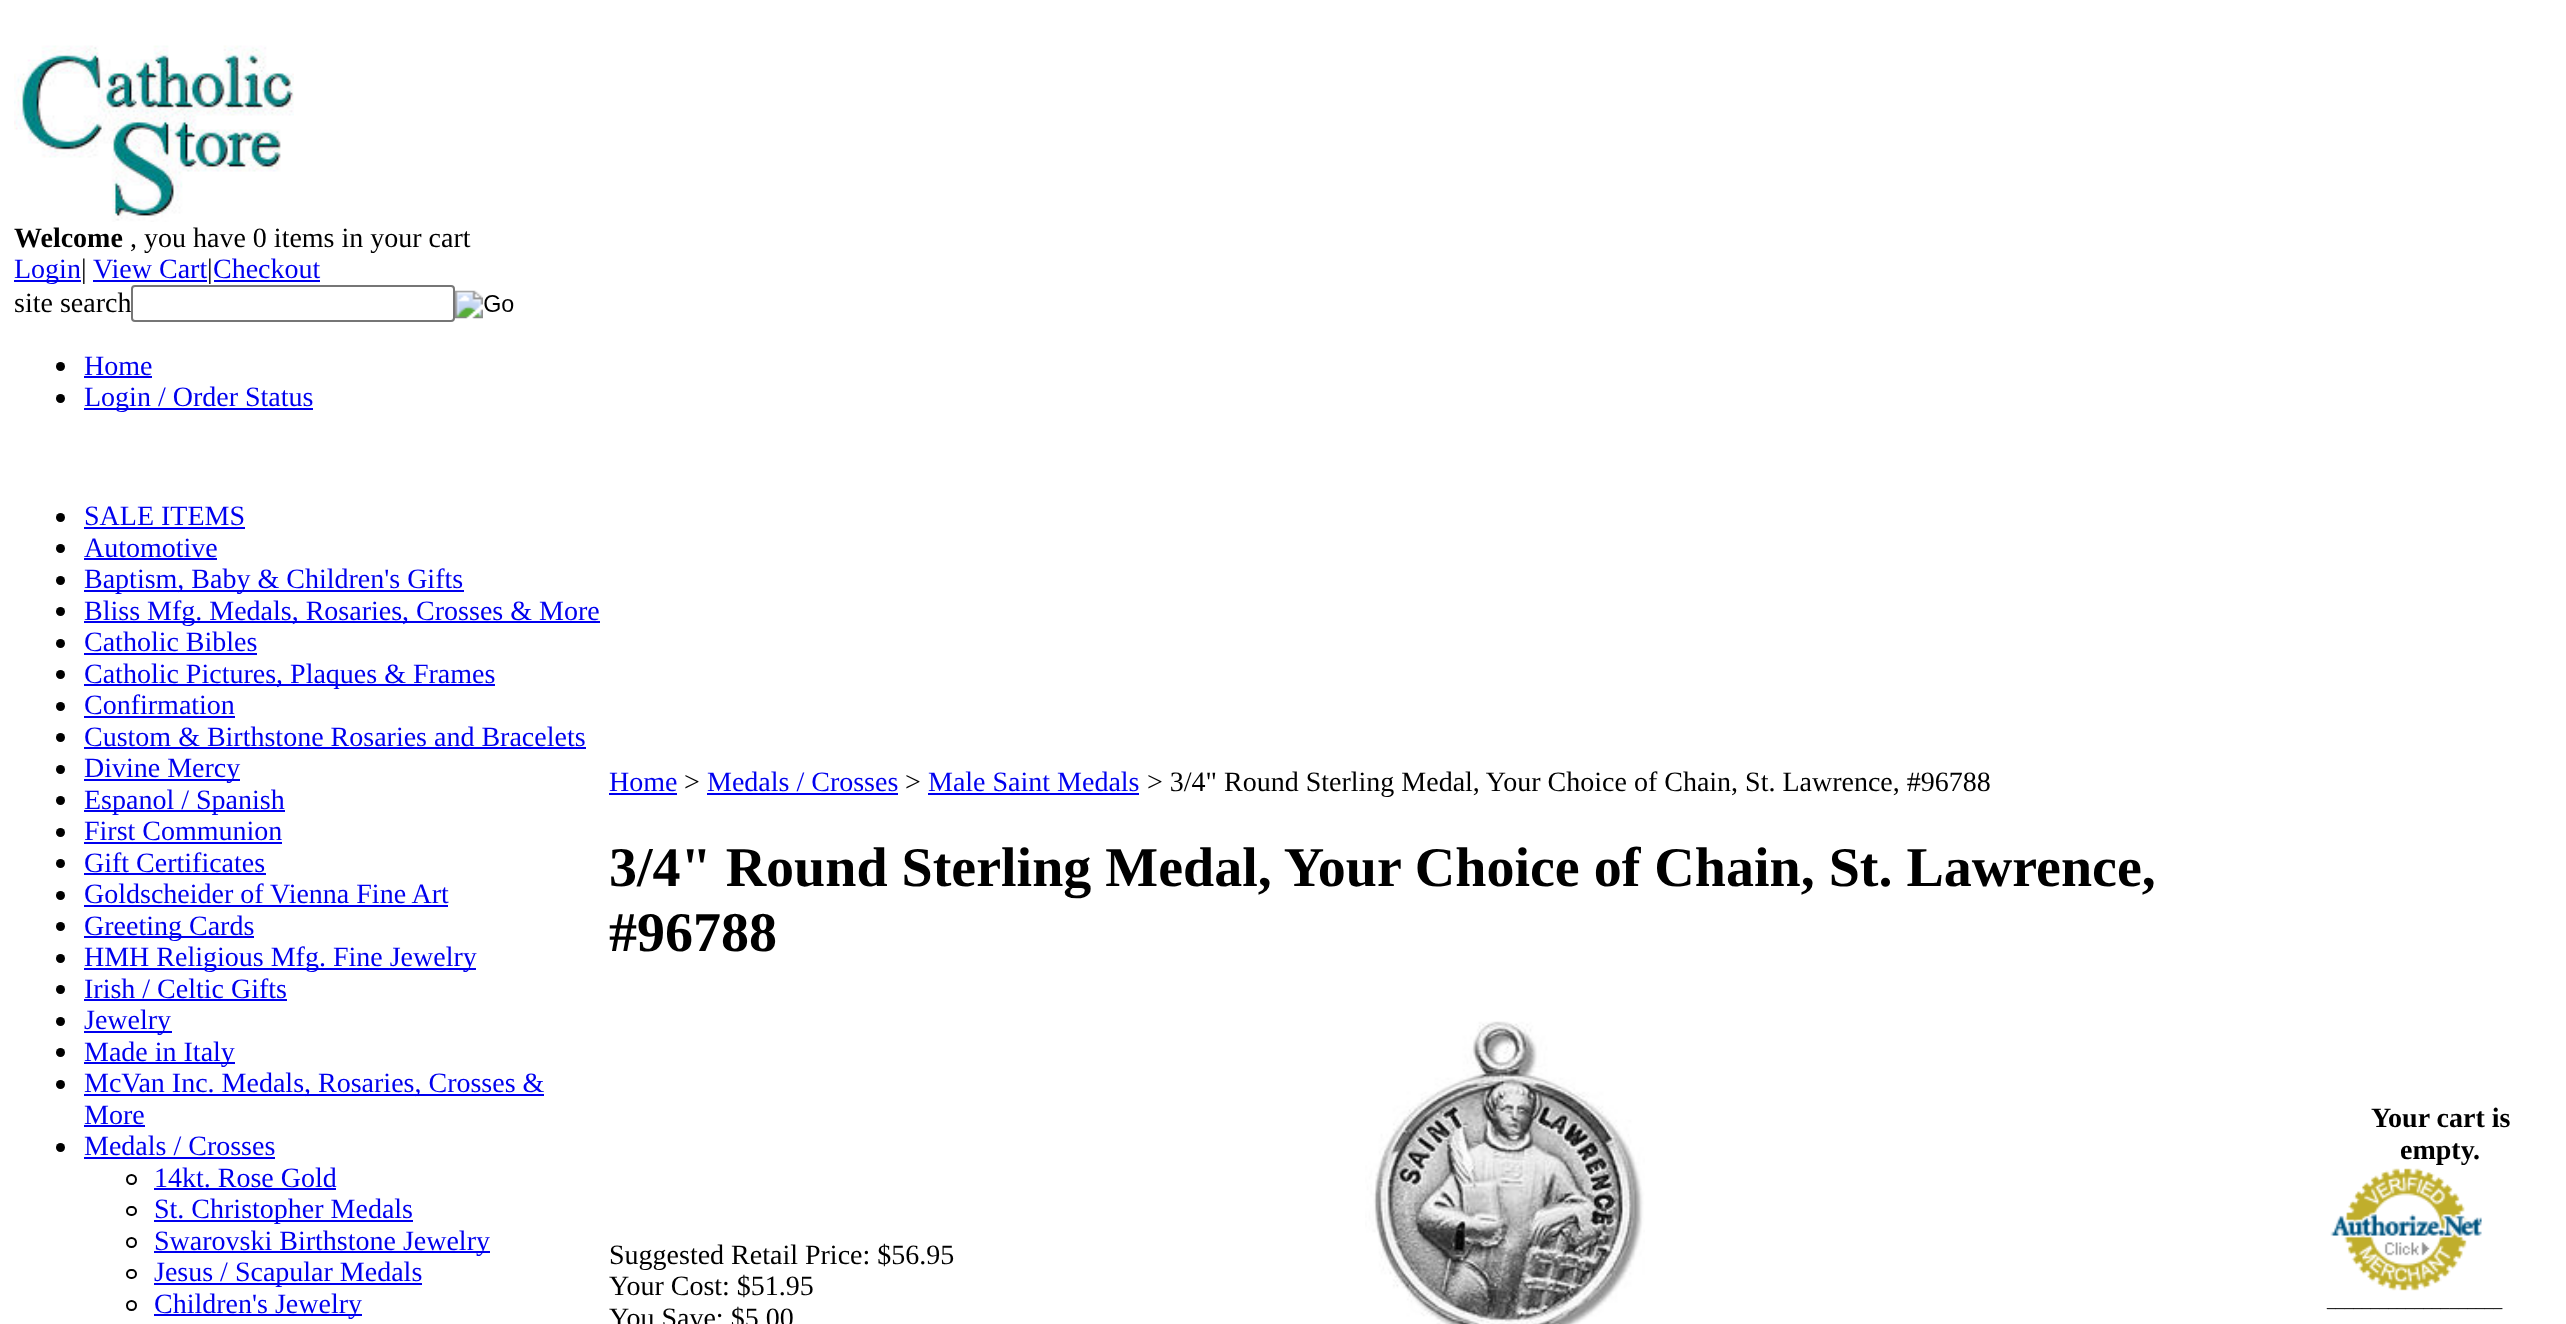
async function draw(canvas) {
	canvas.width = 2566;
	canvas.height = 1324;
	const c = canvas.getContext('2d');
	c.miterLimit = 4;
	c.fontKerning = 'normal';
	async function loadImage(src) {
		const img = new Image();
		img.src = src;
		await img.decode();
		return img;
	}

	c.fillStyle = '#fff';
	c.fillRect(0, 0, 2566, 1324);
	c.drawImage(await loadImage('img1.png'), 14, 45, 280, 177);
	c.font = 'bold 28px Liberation Serif';
	c.fillStyle = '#000';
	c.fillText('Welcome', 14, 247);
	c.font = '28px Liberation Serif';
	c.fillText(', you have 0 items in your cart', 130, 247);
	c.fillStyle = '#00e';
	c.fillRect(14, 280, 67, 2);
	c.fillText('Login', 14, 278);
	c.fillStyle = '#000';
	c.fillText('|', 81, 278);
	c.fillStyle = '#00e';
	c.fillText('View Cart', 93, 278);
	c.fillRect(93, 280, 114, 2);
	c.fillStyle = '#000';
	c.fillText('|', 207, 278);
	c.fillStyle = '#00e';
	c.fillText('Checkout', 213, 278);
	c.fillRect(214, 280, 106, 2);
	c.fillStyle = '#000';
	c.fillText('site search', 14, 312);
	c.beginPath();
	c.roundRect(132, 286, 322, 35, 3);
	c.strokeStyle = '#767676';
	c.lineWidth = 2;
	c.stroke();
	c.drawImage(await loadImage('img2.png'), 455, 290, 59, 29);
	c.beginPath();
	c.arc(60.5, 366.5, 4.5, 0, 2 * Math.PI);
	c.fill();
	c.fillStyle = '#00e';
	c.fillText('Home', 84, 375);
	c.fillRect(84, 376, 68, 2);
	c.fillStyle = '#000';
	c.beginPath();
	c.arc(60.5, 398.5, 4.5, 0, 2 * Math.PI);
	c.fill();
	c.fillStyle = '#00e';
	c.fillRect(84, 408, 229, 2);
	c.fillText('Login / Order Status', 84, 406);
	c.fillStyle = '#000';
	c.beginPath();
	c.arc(60.5, 517.5, 4.5, 0, 2 * Math.PI);
	c.fill();
	c.fillStyle = '#00e';
	c.fillText('SALE ITEMS', 84, 525);
	c.fillRect(84, 527, 161, 2);
	c.fillStyle = '#000';
	c.beginPath();
	c.arc(60.5, 548.5, 4.5, 0, 2 * Math.PI);
	c.fill();
	c.fillStyle = '#00e';
	c.fillText('Automotive', 84, 557);
	c.fillRect(84, 558, 133, 2);
	c.fillStyle = '#000';
	c.beginPath();
	c.arc(60.5, 580.5, 4.5, 0, 2 * Math.PI);
	c.fill();
	c.fillStyle = '#00e';
	c.fillRect(84, 590, 380, 2);
	c.fillText('Baptism, Baby & Children\'s Gifts', 84, 588);
	c.fillStyle = '#000';
	c.beginPath();
	c.arc(60.5, 611.5, 4.5, 0, 2 * Math.PI);
	c.fill();
	c.fillStyle = '#00e';
	c.fillRect(84, 621, 516, 2);
	c.fillText('Bliss Mfg. Medals, Rosaries, Crosses & More', 84, 620);
	c.fillStyle = '#000';
	c.beginPath();
	c.arc(60.5, 643.5, 4.5, 0, 2 * Math.PI);
	c.fill();
	c.fillStyle = '#00e';
	c.fillText('Catholic Bibles', 84, 651);
	c.fillRect(84, 653, 173, 2);
	c.fillStyle = '#000';
	c.beginPath();
	c.arc(60.5, 674.5, 4.5, 0, 2 * Math.PI);
	c.fill();
	c.fillStyle = '#00e';
	c.fillRect(84, 684, 411, 2);
	c.fillText('Catholic Pictures, Plaques & Frames', 84, 683);
	c.fillStyle = '#000';
	c.beginPath();
	c.arc(60.5, 706.5, 4.5, 0, 2 * Math.PI);
	c.fill();
	c.fillStyle = '#00e';
	c.fillText('Confirmation', 84, 714);
	c.fillRect(84, 716, 151, 2);
	c.fillStyle = '#000';
	c.beginPath();
	c.arc(60.5, 737.5, 4.5, 0, 2 * Math.PI);
	c.fill();
	c.fillStyle = '#00e';
	c.fillText('Custom & Birthstone Rosaries and Bracelets', 84, 746);
	c.fillRect(84, 747, 502, 2);
	c.fillStyle = '#000';
	c.beginPath();
	c.arc(60.5, 769.5, 4.5, 0, 2 * Math.PI);
	c.fill();
	c.fillStyle = '#00e';
	c.fillRect(84, 779, 156, 2);
	c.fillText('Divine Mercy', 84, 777);
	c.fillStyle = '#000';
	c.beginPath();
	c.arc(60.5, 800.5, 4.5, 0, 2 * Math.PI);
	c.fill();
	c.fillStyle = '#00e';
	c.fillRect(84, 810, 201, 2);
	c.fillText('Espanol / Spanish', 84, 809);
	c.fillStyle = '#000';
	c.beginPath();
	c.arc(60.5, 832.5, 4.5, 0, 2 * Math.PI);
	c.fill();
	c.fillStyle = '#00e';
	c.fillText('First Communion', 84, 840);
	c.fillRect(84, 842, 198, 2);
	c.fillStyle = '#000';
	c.beginPath();
	c.arc(60.5, 863.5, 4.5, 0, 2 * Math.PI);
	c.fill();
	c.fillStyle = '#00e';
	c.fillText('Gift Certificates', 84, 872);
	c.fillRect(84, 873, 182, 2);
	c.fillStyle = '#000';
	c.beginPath();
	c.arc(60.5, 895.5, 4.5, 0, 2 * Math.PI);
	c.fill();
	c.fillStyle = '#00e';
	c.fillText('Goldscheider of Vienna Fine Art', 84, 903);
	c.fillRect(84, 905, 364, 2);
	c.fillStyle = '#000';
	c.beginPath();
	c.arc(60.5, 926.5, 4.5, 0, 2 * Math.PI);
	c.fill();
	c.fillStyle = '#00e';
	c.fillRect(84, 936, 170, 2);
	c.fillText('Greeting Cards', 84, 935);
	c.fillStyle = '#000';
	c.beginPath();
	c.arc(60.5, 958.5, 4.5, 0, 2 * Math.PI);
	c.fill();
	c.fillStyle = '#00e';
	c.fillRect(84, 968, 392, 2);
	c.fillText('HMH Religious Mfg. Fine Jewelry', 84, 966);
	c.fillStyle = '#000';
	c.beginPath();
	c.arc(60.5, 989.5, 4.5, 0, 2 * Math.PI);
	c.fill();
	c.fillStyle = '#00e';
	c.fillText('Irish / Celtic Gifts', 84, 998);
	c.fillRect(84, 999, 203, 2);
	c.fillStyle = '#000';
	c.beginPath();
	c.arc(60.5, 1021.5, 4.5, 0, 2 * Math.PI);
	c.fill();
	c.fillStyle = '#00e';
	c.fillRect(84, 1031, 88, 2);
	c.fillText('Jewelry', 84, 1029);
	c.fillStyle = '#000';
	c.beginPath();
	c.arc(60.5, 1052.5, 4.5, 0, 2 * Math.PI);
	c.fill();
	c.fillStyle = '#00e';
	c.fillRect(84, 1062, 151, 2);
	c.fillText('Made in Italy', 84, 1061);
	c.fillStyle = '#000';
	c.beginPath();
	c.arc(60.5, 1084.5, 4.5, 0, 2 * Math.PI);
	c.fill();
	c.fillStyle = '#00e';
	c.fillRect(84, 1094, 460, 2);
	c.fillText('McVan Inc. Medals, Rosaries, Crosses &', 84, 1092);
	c.fillText('More', 84, 1124);
	c.fillRect(84, 1125, 61, 2);
	c.fillStyle = '#000';
	c.beginPath();
	c.arc(60.5, 1147.5, 4.5, 0, 2 * Math.PI);
	c.fill();
	c.fillStyle = '#00e';
	c.fillText('Medals / Crosses', 84, 1155);
	c.fillRect(84, 1157, 191, 2);
	c.beginPath();
	c.arc(131.5, 1179.5, 4.5, 0, 2 * Math.PI);
	c.strokeStyle = '#000';
	c.stroke();
	c.fillText('14kt. Rose Gold', 154, 1187);
	c.fillRect(154, 1188, 182, 2);
	c.beginPath();
	c.roundRect(127, 1207, 9, 8, 4);
	c.stroke();
	c.fillRect(154, 1220, 259, 2);
	c.fillText('St. Christopher Medals', 154, 1218);
	c.beginPath();
	c.arc(131.5, 1242.5, 4.5, 0, 2 * Math.PI);
	c.stroke();
	c.fillRect(154, 1251, 336, 2);
	c.fillText('Swarovski Birthstone Jewelry', 154, 1250);
	c.beginPath();
	c.roundRect(127, 1270, 9, 8, 4);
	c.stroke();
	c.fillRect(154, 1283, 268, 2);
	c.fillText('Jesus / Scapular Medals', 154, 1281);
	c.beginPath();
	c.arc(131.5, 1305.5, 4.5, 0, 2 * Math.PI);
	c.stroke();
	c.fillRect(154, 1314, 208, 2);
	c.fillText('Children\'s Jewelry', 154, 1313);
	c.fillText('Home', 609, 791);
	c.fillRect(609, 793, 68, 2);
	c.fillStyle = '#000';
	c.fillText('>', 684, 791);
	c.fillStyle = '#00e';
	c.fillText('Medals / Crosses', 707, 791);
	c.fillRect(707, 793, 191, 2);
	c.fillStyle = '#000';
	c.fillText('>', 905, 791);
	c.fillStyle = '#00e';
	c.fillText('Male Saint Medals', 928, 791);
	c.fillRect(928, 793, 211, 2);
	c.fillStyle = '#000';
	c.fillText('> 3/4" Round Sterling Medal, Your Choice of Chain, St. Lawrence, #96788', 1147, 791);
	c.font = 'bold 56px Liberation Serif';
	c.fillText('3/4" Round Sterling Medal, Your Choice of Chain, St. Lawrence,', 609, 886);
	c.fillText('#96788', 609, 951);
	c.font = '28px Liberation Serif';
	for (const [text, x, y] of [
		['Suggested Retail Price: $56.95', 609, 1264],
		['Your Cost: $51.95', 609, 1295],
		['You Save: $5.00', 609, 1327],
	]) {
		c.fillText(text, x, y);
	}
	c.drawImage(await loadImage('img3.png'), 1365, 1021, 280, 303);
	c.font = 'bold 28px Liberation Serif';
	c.fillText('Your cart is', 2371, 1127);
	c.fillText('empty.', 2400, 1159);
	c.drawImage(await loadImage('img4.png'), 2330, 1168, 152, 123);
	c.font = '15.75px Liberation Sans';
	c.fillText('____________________', 2327, 1306);
}

draw(document.querySelector('canvas'));
